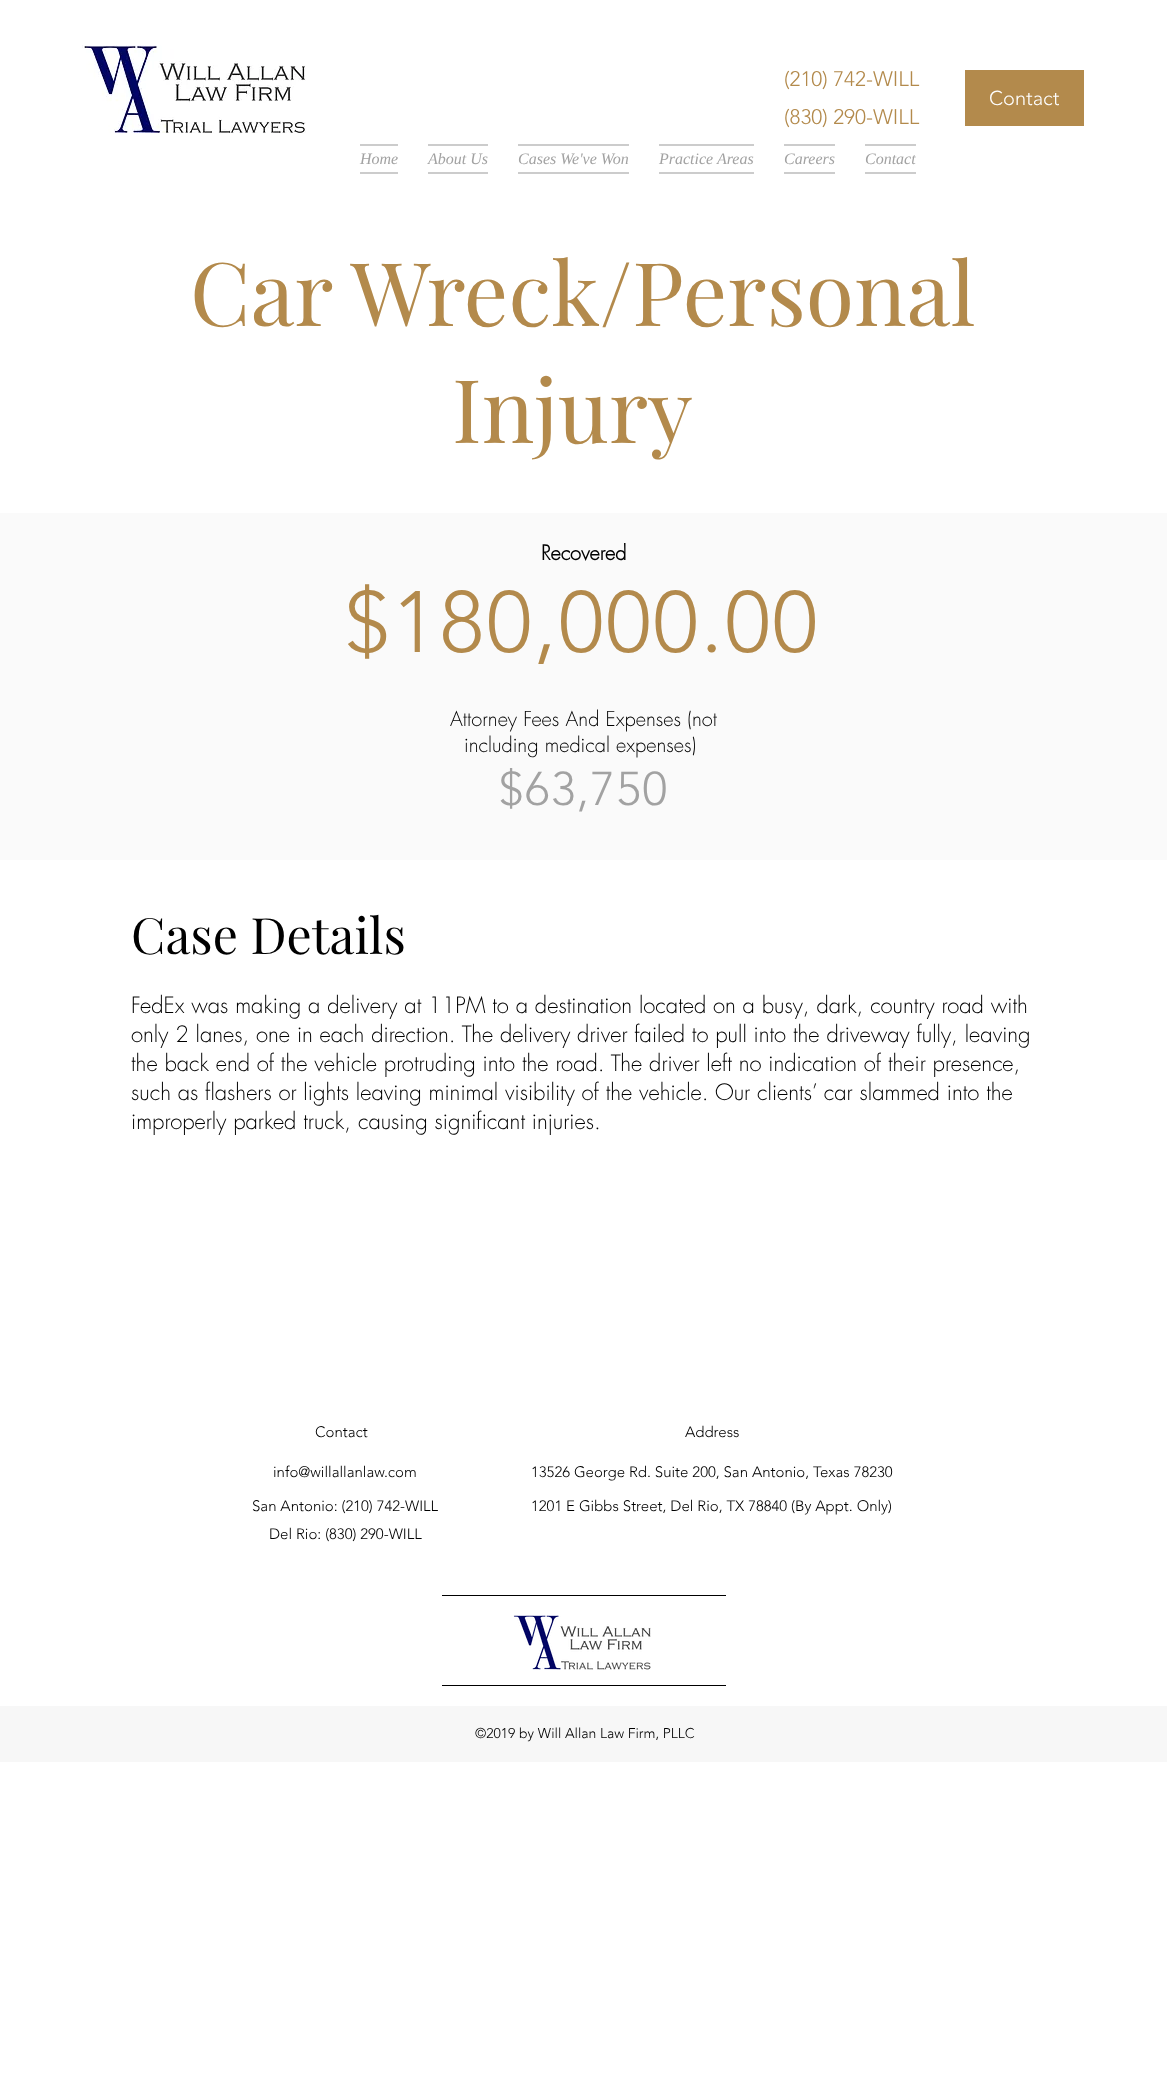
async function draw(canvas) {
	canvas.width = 1167;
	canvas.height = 2092;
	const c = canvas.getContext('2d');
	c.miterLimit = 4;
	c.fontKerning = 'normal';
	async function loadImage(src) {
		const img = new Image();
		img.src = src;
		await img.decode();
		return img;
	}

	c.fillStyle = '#fff';
	c.fillRect(0, 0, 1167, 2092);
	c.drawImage(await loadImage('img1.png'), 82, 45, 224, 88);
	c.font = '300 21px "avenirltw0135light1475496"';
	c.fillStyle = '#b38a4c';
	c.fillText('(210) 742-WILL', 784, 86);
	c.fillText('(830) 290-WILL', 784, 124);
	c.fillRect(965, 70, 119, 56);
	c.font = '300 20px "avenirltw0135light1475496"';
	c.fillStyle = '#fff';
	c.fillText('Contact', 989, 105);
	c.fillStyle = '#ccc';
	c.fillRect(360, 144, 38, 2);
	c.fillRect(360, 172, 38, 2);
	c.font = 'italic 16px Liberation Serif';
	c.fillStyle = '#a2a2a2';
	c.fillText('Home', 360, 164);
	c.fillStyle = '#ccc';
	c.fillRect(428, 144, 60, 2);
	c.fillRect(428, 172, 60, 2);
	c.fillStyle = '#a2a2a2';
	c.fillText('About Us', 428, 164);
	c.fillStyle = '#ccc';
	c.fillRect(518, 144, 111, 2);
	c.fillRect(518, 172, 111, 2);
	c.fillStyle = '#a2a2a2';
	c.fillText('Cases We\'ve Won', 518, 164);
	c.fillStyle = '#ccc';
	c.fillRect(659, 144, 95, 2);
	c.fillRect(659, 172, 95, 2);
	c.fillStyle = '#a2a2a2';
	c.fillText('Practice Areas', 659, 164);
	c.fillStyle = '#ccc';
	c.fillRect(784, 144, 51, 2);
	c.fillRect(784, 172, 51, 2);
	c.fillStyle = '#a2a2a2';
	c.fillText('Careers', 784, 164);
	c.fillStyle = '#ccc';
	c.fillRect(865, 144, 51, 2);
	c.fillRect(865, 172, 51, 2);
	c.fillStyle = '#a2a2a2';
	c.fillText('Contact', 865, 164);
	c.font = '88px Playfair Display';
	c.fillStyle = '#b38a4c';
	c.fillText('Car Wreck/Personal', 190, 326);
	c.fillText('Injury', 452, 443);
	c.fillStyle = '#fafafa';
	c.fillRect(0, 513, 1167, 347);
	c.font = 'bold 20px futura';
	c.fillStyle = '#000';
	c.fillText('Recovered', 541, 560);
	c.letterSpacing = '2.5px';
	c.font = '300 86px "avenirltw0135light1475496"';
	c.fillStyle = '#b38a4c';
	c.fillText('$180,000.00', 345, 652);
	c.letterSpacing = '0px';
	c.font = '300 20px futura';
	c.fillStyle = '#000';
	c.fillText('Attorney Fees And Expenses (not', 450, 726);
	c.fillText('including medical expenses)', 464, 752);
	c.letterSpacing = '1.5px';
	c.font = '300 47px "avenirltw0135light1475496"';
	c.fillStyle = '#a2a2a2';
	c.fillText('$63,750', 499, 805);
	c.letterSpacing = '0px';
	c.font = '50px Playfair Display';
	c.fillStyle = '#000';
	c.fillText('Case Details', 131, 954);
	c.font = '300 22px futura';
	for (const [text, x, y] of [
		['FedEx was making a delivery at 11PM to a destination located on a busy, dark, country road with', 131, 1013],
		['only 2 lanes, one in each direction. The delivery driver failed to pull into the driveway fully, leaving', 131, 1042],
		['the back end of the vehicle protruding into the road. The driver left no indication of their presence,', 131, 1071],
		['such as flashers or lights leaving minimal visibility of the vehicle. Our clients’ car slammed into the', 131, 1100],
		['improperly parked truck, causing significant injuries.', 131, 1129],
	]) {
		c.fillText(text, x, y);
	}
	c.font = '300 15px "avenirltw0135light1475496"';
	for (const [text, x, y] of [
		['Contact', 315, 1437],
		['Address', 685, 1437],
		['info@willallanlaw.com', 273, 1477],
		['13526 George Rd. Suite 200, San Antonio, Texas 78230', 531, 1477],
		['San Antonio: (210) 742-WILL', 252, 1511],
		['Del Rio: (830) 290-WILL', 269, 1539],
		['1201 E Gibbs Street, Del Rio, TX 78840 (By Appt. Only)', 531, 1511],
	]) {
		c.fillText(text, x, y);
	}
	c.fillRect(442, 1595, 284, 1);
	c.drawImage(await loadImage('img2.png'), 513, 1615, 138, 55);
	c.fillRect(442, 1685, 284, 1);
	c.fillStyle = '#f7f7f7';
	c.fillRect(0, 1706, 1167, 56);
	c.font = '300 14px "avenirltw0135light1475496"';
	c.fillStyle = '#000';
	c.fillText('©2019 by Will Allan Law Firm, PLLC', 475, 1738);
}

draw(document.querySelector('canvas'));
